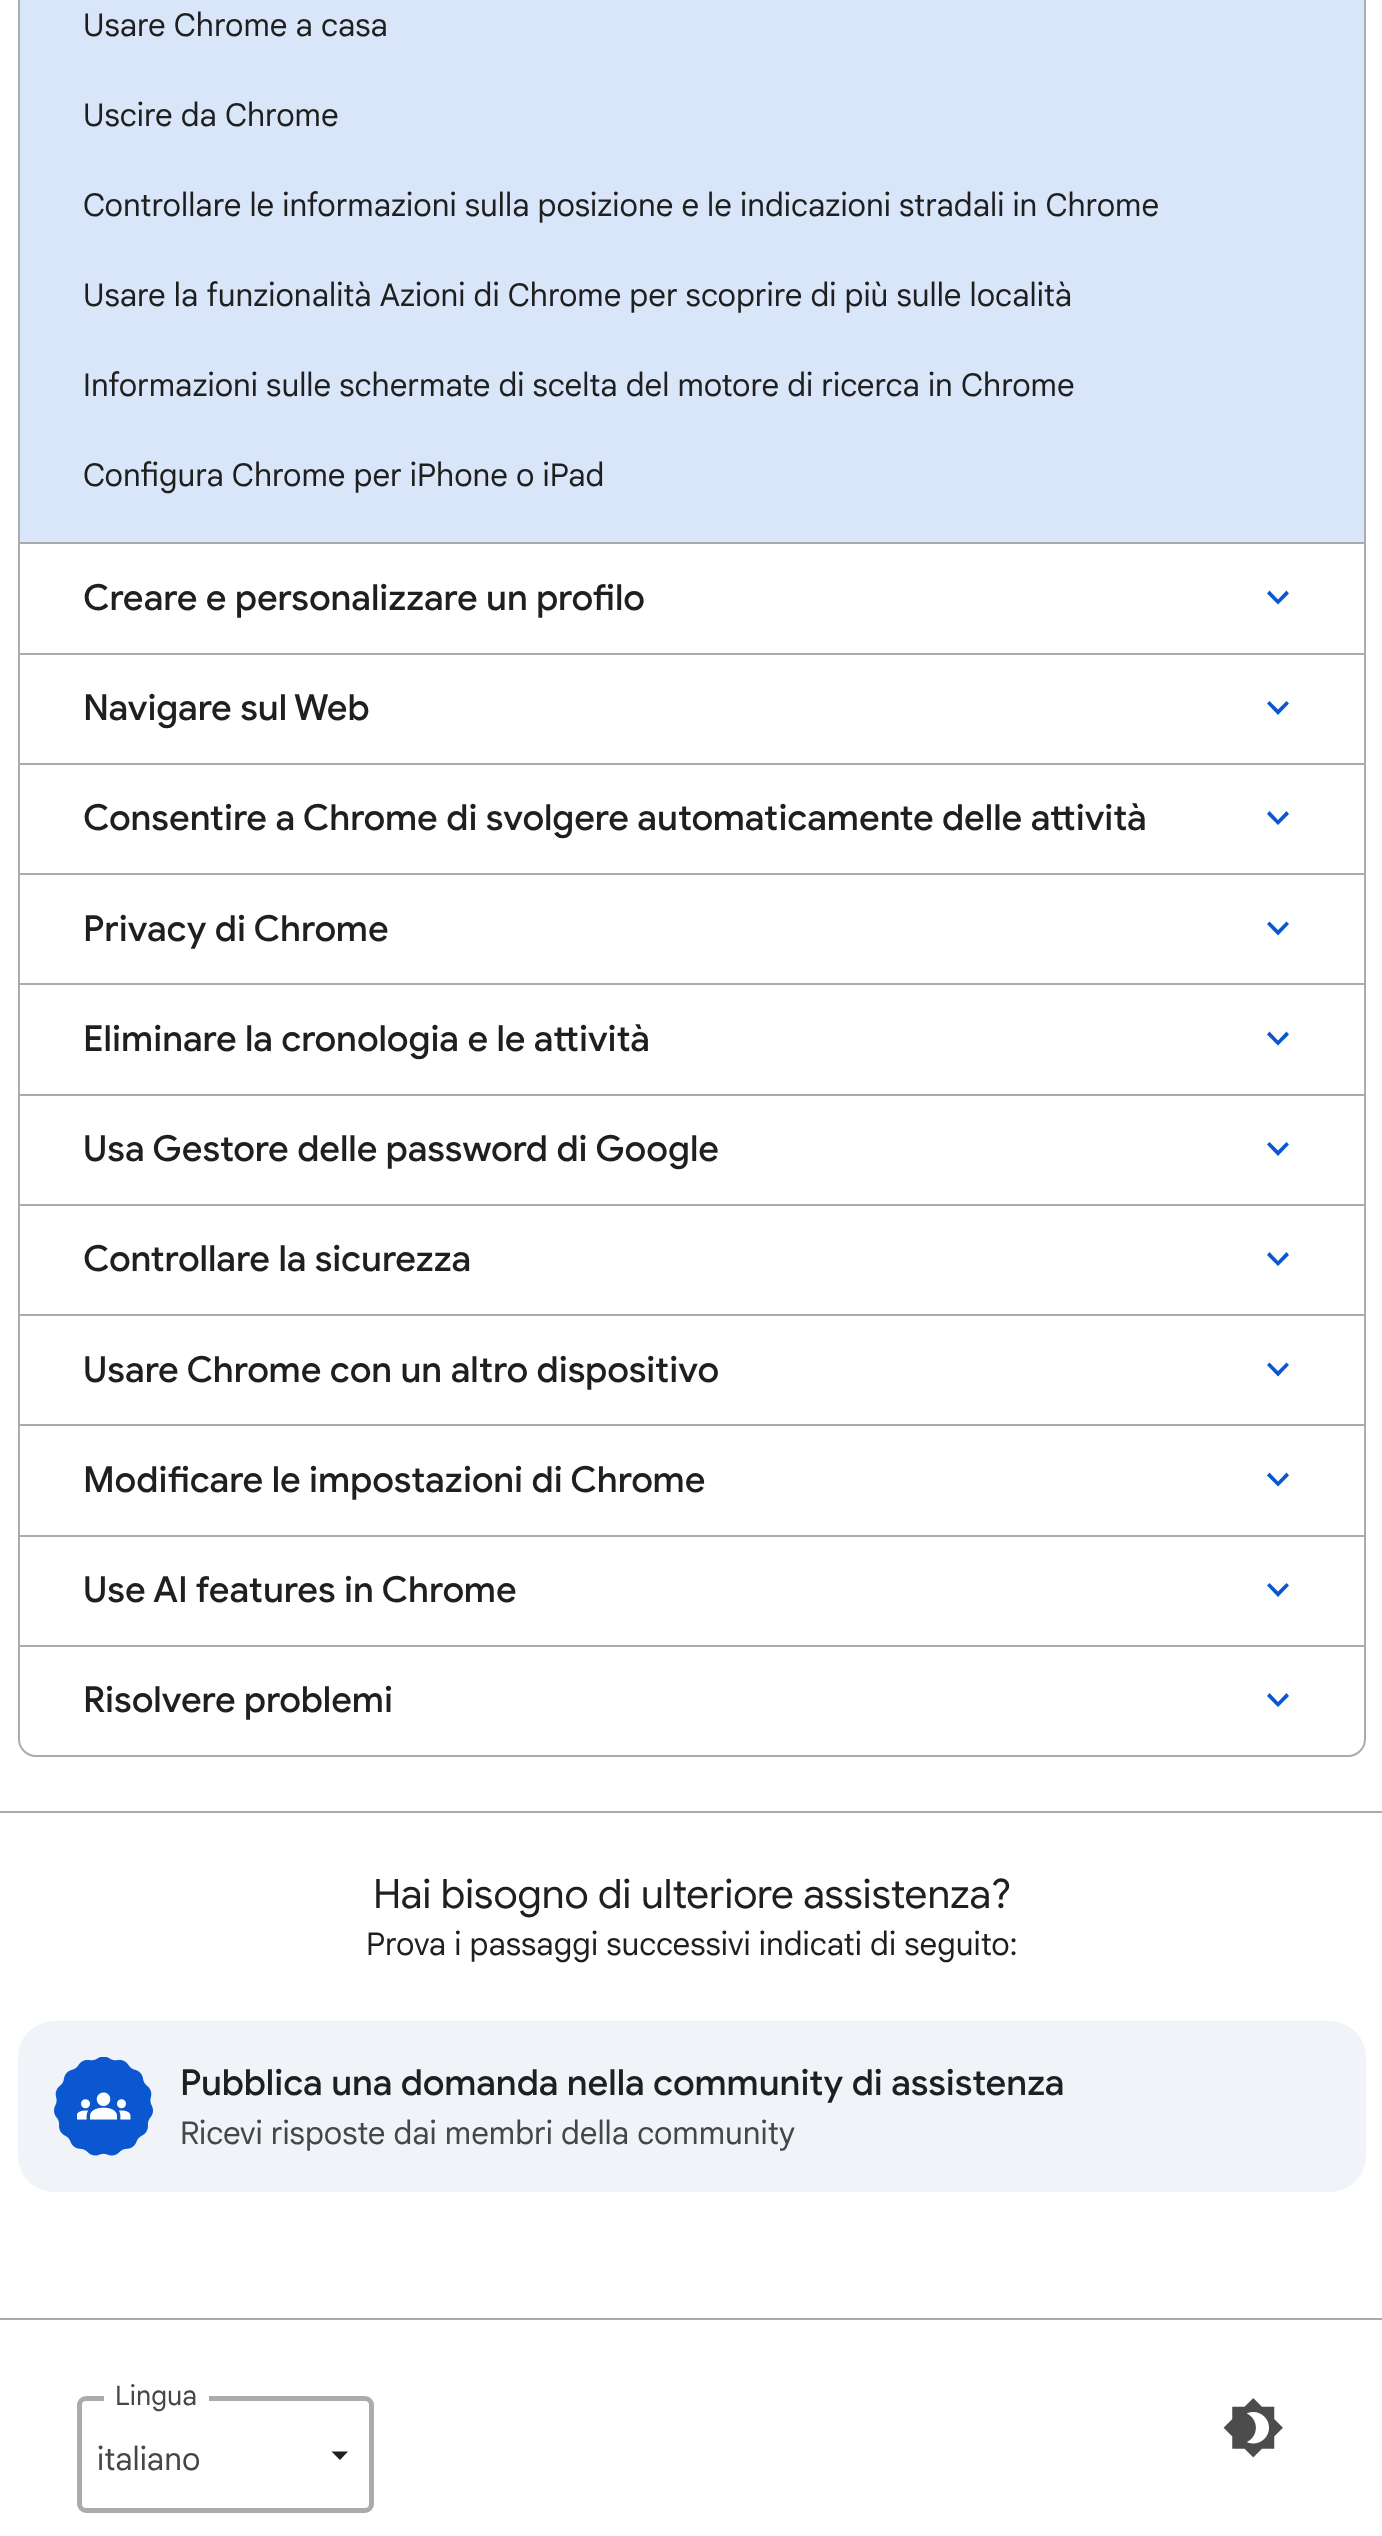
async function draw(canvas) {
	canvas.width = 1382;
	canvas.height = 2536;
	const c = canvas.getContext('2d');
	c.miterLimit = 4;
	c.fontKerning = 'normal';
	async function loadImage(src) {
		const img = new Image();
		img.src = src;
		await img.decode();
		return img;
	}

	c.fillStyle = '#fff';
	c.fillRect(0, 0, 1382, 2536);
	c.beginPath();
	c.roundRect(19, -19, 1346, 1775, 17);
	c.strokeStyle = '#a9acaa';
	c.lineWidth = 2;
	c.stroke();
	c.fillStyle = '#d9e5f8';
	c.fillRect(20, 0, 1344, 542);
	c.font = '31.5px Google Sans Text';
	c.fillStyle = '#1f1f1f';
	for (const [text, x, y] of [
		['Usare Chrome a casa', 83, 36],
		['Uscire da Chrome', 83, 126],
		['Controllare le informazioni sulla posizione e le indicazioni stradali in Chrome', 83, 216],
		['Usare la funzionalità Azioni di Chrome per scoprire di più sulle località', 83, 306],
		['Informazioni sulle schermate di scelta del motore di ricerca in Chrome', 83, 396],
		['Configura Chrome per iPhone o iPad', 83, 486],
	]) {
		c.fillText(text, x, y);
	}
	c.fillStyle = '#a9acaa';
	c.fillRect(20, 542, 1344, 2);
	c.font = '500 36px Google Sans';
	c.fillStyle = '#1f1f1f';
	c.fillText('Creare e personalizzare un profilo', 83, 610);
	c.fillStyle = '#0b57d0';
	c.beginPath();
	c.moveTo(1269.5, 590.5);
	c.lineTo(1278, 599.5);
	c.lineTo(1286.5, 590.5);
	c.lineTo(1289, 593.5);
	c.lineTo(1278, 604.5);
	c.lineTo(1267, 593.5);
	c.closePath();
	c.fill();
	c.fillStyle = '#a9acaa';
	c.fillRect(20, 653, 1344, 2);
	c.fillStyle = '#1f1f1f';
	c.fillText('Navigare sul Web', 83, 720);
	c.fillStyle = '#0b57d0';
	c.beginPath();
	c.moveTo(1269.5, 701);
	c.lineTo(1278, 709.5);
	c.lineTo(1286.5, 701);
	c.lineTo(1289, 703.5);
	c.lineTo(1278, 715);
	c.lineTo(1267, 703.5);
	c.closePath();
	c.fill();
	c.fillStyle = '#a9acaa';
	c.fillRect(20, 763, 1344, 2);
	c.fillStyle = '#1f1f1f';
	c.fillText('Consentire a Chrome di svolgere automaticamente delle attività', 83, 830);
	c.fillStyle = '#0b57d0';
	c.beginPath();
	c.moveTo(1269.5, 811);
	c.lineTo(1278, 820);
	c.lineTo(1286.5, 811);
	c.lineTo(1289, 814);
	c.lineTo(1278, 825);
	c.lineTo(1267, 814);
	c.closePath();
	c.fill();
	c.fillStyle = '#a9acaa';
	c.fillRect(20, 873, 1344, 2);
	c.fillStyle = '#1f1f1f';
	c.fillText('Privacy di Chrome', 83, 941);
	c.fillStyle = '#0b57d0';
	c.beginPath();
	c.moveTo(1269.5, 921.5);
	c.lineTo(1278, 930);
	c.lineTo(1286.5, 921.5);
	c.lineTo(1289, 924);
	c.lineTo(1278, 935.5);
	c.lineTo(1267, 924);
	c.closePath();
	c.fill();
	c.fillStyle = '#a9acaa';
	c.fillRect(20, 983, 1344, 2);
	c.fillStyle = '#1f1f1f';
	c.fillText('Eliminare la cronologia e le attività', 83, 1051);
	c.fillStyle = '#0b57d0';
	c.beginPath();
	c.moveTo(1269.5, 1031.5);
	c.lineTo(1278, 1040.5);
	c.lineTo(1286.5, 1031.5);
	c.lineTo(1289, 1034.5);
	c.lineTo(1278, 1045.5);
	c.lineTo(1267, 1034.5);
	c.closePath();
	c.fill();
	c.fillStyle = '#a9acaa';
	c.fillRect(20, 1094, 1344, 2);
	c.fillStyle = '#1f1f1f';
	c.fillText('Usa Gestore delle password di Google', 83, 1161);
	c.fillStyle = '#0b57d0';
	c.beginPath();
	c.moveTo(1269.5, 1142);
	c.lineTo(1278, 1150.5);
	c.lineTo(1286.5, 1142);
	c.lineTo(1289, 1144.5);
	c.lineTo(1278, 1156);
	c.lineTo(1267, 1144.5);
	c.closePath();
	c.fill();
	c.fillStyle = '#a9acaa';
	c.fillRect(20, 1204, 1344, 2);
	c.fillStyle = '#1f1f1f';
	c.fillText('Controllare la sicurezza', 83, 1271);
	c.fillStyle = '#0b57d0';
	c.beginPath();
	c.moveTo(1269.5, 1252);
	c.lineTo(1278, 1261);
	c.lineTo(1286.5, 1252);
	c.lineTo(1289, 1255);
	c.lineTo(1278, 1266);
	c.lineTo(1267, 1255);
	c.closePath();
	c.fill();
	c.fillStyle = '#a9acaa';
	c.fillRect(20, 1314, 1344, 2);
	c.fillStyle = '#1f1f1f';
	c.fillText('Usare Chrome con un altro dispositivo', 83, 1382);
	c.fillStyle = '#0b57d0';
	c.beginPath();
	c.moveTo(1269.5, 1362.5);
	c.lineTo(1278, 1371);
	c.lineTo(1286.5, 1362.5);
	c.lineTo(1289, 1365);
	c.lineTo(1278, 1376.5);
	c.lineTo(1267, 1365);
	c.closePath();
	c.fill();
	c.fillStyle = '#a9acaa';
	c.fillRect(20, 1424, 1344, 2);
	c.fillStyle = '#1f1f1f';
	c.fillText('Modificare le impostazioni di Chrome', 83, 1492);
	c.fillStyle = '#0b57d0';
	c.beginPath();
	c.moveTo(1269.5, 1472.5);
	c.lineTo(1278, 1481.5);
	c.lineTo(1286.5, 1472.5);
	c.lineTo(1289, 1475.5);
	c.lineTo(1278, 1486.5);
	c.lineTo(1267, 1475.5);
	c.closePath();
	c.fill();
	c.fillStyle = '#a9acaa';
	c.fillRect(20, 1535, 1344, 2);
	c.fillStyle = '#1f1f1f';
	c.fillText('Use AI features in Chrome', 83, 1602);
	c.fillStyle = '#0b57d0';
	c.beginPath();
	c.moveTo(1269.5, 1583);
	c.lineTo(1278, 1591.5);
	c.lineTo(1286.5, 1583);
	c.lineTo(1289, 1585.5);
	c.lineTo(1278, 1597);
	c.lineTo(1267, 1585.5);
	c.closePath();
	c.fill();
	c.fillStyle = '#a9acaa';
	c.fillRect(20, 1645, 1344, 2);
	c.fillStyle = '#1f1f1f';
	c.fillText('Risolvere problemi', 83, 1712);
	c.fillStyle = '#0b57d0';
	c.beginPath();
	c.moveTo(1269.5, 1693);
	c.lineTo(1278, 1702);
	c.lineTo(1286.5, 1693);
	c.lineTo(1289, 1696);
	c.lineTo(1278, 1707);
	c.lineTo(1267, 1696);
	c.closePath();
	c.fill();
	c.fillStyle = '#a9acaa';
	c.fillRect(0, 1811, 1382, 2);
	c.font = '40.5px Google Sans';
	c.fillStyle = '#1f1f1f';
	c.fillText('Hai bisogno di ulteriore assistenza?', 373, 1908);
	c.font = '31.5px Google Sans Text';
	c.fillText('Prova i passaggi successivi indicati di seguito:', 366, 1955);
	c.fillStyle = '#f0f4f9';
	c.beginPath();
	c.roundRect(18, 2021, 1348, 171, 36);
	c.fill();
	c.drawImage(await loadImage('img1.png'), 54, 2057, 99, 99);
	c.drawImage(await loadImage('img2.png'), 77, 2092, 54, 28);
	c.font = '500 36px Google Sans';
	c.fillStyle = '#1f1f1f';
	c.fillText('Pubblica una domanda nella community di assistenza', 180, 2095);
	c.font = '31.5px Google Sans Text';
	c.fillStyle = '#444746';
	c.fillText('Ricevi risposte dai membri della community', 180, 2144);
	c.fillStyle = '#a9acaa';
	c.fillRect(0, 2318, 1382, 2);
	c.beginPath();
	c.roundRect(79.5, 2398.5, 292, 112, 6.5);
	c.lineWidth = 5;
	c.stroke();
	c.fillStyle = '#fff';
	c.fillRect(104, 2396, 105, 5);
	c.font = '27px Google Sans Text';
	c.fillStyle = '#444746';
	c.fillText('Lingua', 115, 2405);
	c.font = '31.5px Google Sans Text';
	c.fillText('italiano', 97, 2470);
	c.fillStyle = '#1f1f1f';
	c.beginPath();
	c.moveTo(331.5, 2451.5);
	c.lineTo(340, 2460);
	c.lineTo(348, 2451.5);
	c.closePath();
	c.fill();
	c.drawImage(await loadImage('img3.png'), 1223, 2398, 60, 60);
}

draw(document.querySelector('canvas'));
